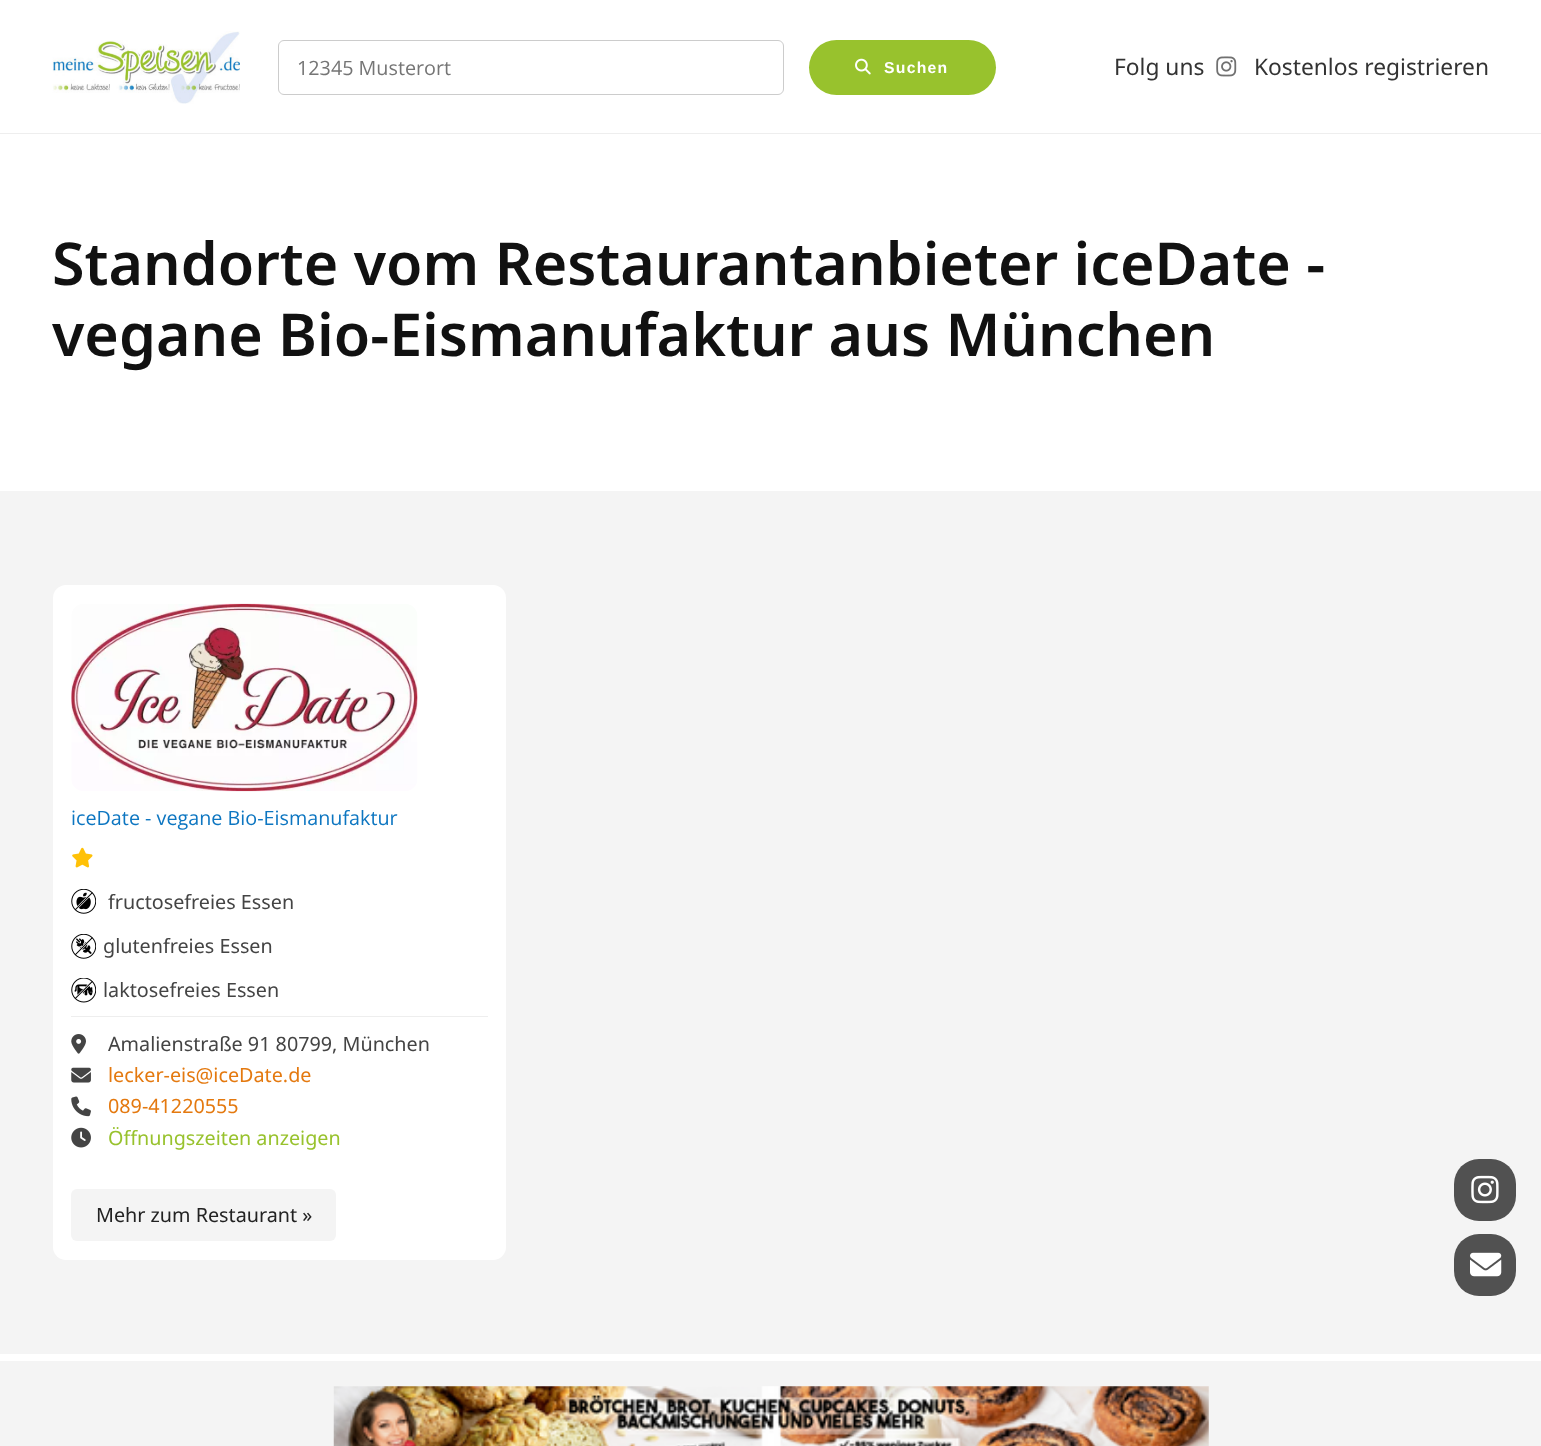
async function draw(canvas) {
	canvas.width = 1541;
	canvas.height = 1446;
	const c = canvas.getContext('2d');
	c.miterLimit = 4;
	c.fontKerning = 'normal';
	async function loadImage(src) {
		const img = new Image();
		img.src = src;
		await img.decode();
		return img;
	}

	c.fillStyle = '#fff';
	c.fillRect(0, 0, 1541, 1446);
	c.fillStyle = '#eee';
	c.fillRect(0, 133, 1541, 1);
	c.drawImage(await loadImage('img1.png'), 52, 31, 188, 73);
	c.beginPath();
	c.roundRect(278.5, 40.5, 505, 54, 5.5);
	c.strokeStyle = '#ccc';
	c.stroke();
	c.font = '19.75px Open Sans';
	c.fillStyle = '#757575';
	c.fillText('12345 Musterort', 297, 75);
	c.fillStyle = '#98c22d';
	c.beginPath();
	c.roundRect(809, 40, 187, 55, 27.5);
	c.fill();
	c.drawImage(await loadImage('img2.png'), 855, 58, 16, 17);
	c.letterSpacing = '1.25px';
	c.font = 'bold 15.75px Liberation Sans';
	c.fillStyle = '#fff';
	c.fillText('Suchen', 884, 73);
	c.letterSpacing = '0px';
	c.font = '22.75px Noto Sans';
	c.fillStyle = '#333';
	c.fillText('Folg uns', 1114, 75);
	c.drawImage(await loadImage('img3.png'), 1216, 56, 21, 21);
	c.fillText('Kostenlos registrieren', 1254, 75);
	c.font = '600 59.1px Noto Sans';
	c.fillStyle = '#111';
	c.fillText('Standorte vom Restaurantanbieter iceDate -', 52, 285);
	c.fillText('vegane Bio-Eismanufaktur aus München', 52, 356);
	c.fillStyle = '#f4f4f4';
	c.fillRect(0, 491, 1541, 863);
	c.fillStyle = '#fff';
	c.beginPath();
	c.roundRect(53, 585, 453, 675, 13);
	c.fill();
	c.drawImage(await loadImage('img4.png'), 71, 603, 347, 189);
	c.font = '19.75px Open Sans';
	c.fillStyle = '#0d76c1';
	c.fillText('iceDate - vegane Bio-Eismanufaktur', 71, 825);
	c.drawImage(await loadImage('img5.png'), 72, 847, 21, 21);
	c.drawImage(await loadImage('img6.png'), 71, 889, 25, 25);
	c.font = '19.75px Noto Sans';
	c.fillStyle = '#444';
	c.fillText('fructosefreies Essen', 108, 909);
	c.drawImage(await loadImage('img7.png'), 71, 934, 25, 25);
	c.fillText('glutenfreies Essen', 103, 953);
	c.drawImage(await loadImage('img8.png'), 71, 978, 25, 25);
	c.fillText('laktosefreies Essen', 103, 997);
	c.fillStyle = '#eee';
	c.fillRect(71, 1016, 417, 1);
	c.drawImage(await loadImage('img9.png'), 71, 1034, 15, 20);
	c.fillStyle = '#444';
	c.fillText('Amalienstraße 91 80799, München', 108, 1051);
	c.drawImage(await loadImage('img10.png'), 71, 1067, 20, 16);
	c.fillStyle = '#e4790f';
	c.fillText('lecker-eis@iceDate.de', 108, 1082);
	c.drawImage(await loadImage('img11.png'), 71, 1096, 20, 21);
	c.fillText('089-41220555', 108, 1113);
	c.drawImage(await loadImage('img12.png'), 71, 1127, 20, 21);
	c.fillStyle = '#98c22d';
	c.fillText('Öffnungszeiten anzeigen', 108, 1145);
	c.fillStyle = '#f4f4f4';
	c.beginPath();
	c.roundRect(71, 1189, 265, 52, 6);
	c.fill();
	c.fillStyle = '#222';
	c.fillText('Mehr zum Restaurant »', 96, 1222);
	c.fillStyle = '#515151';
	c.beginPath();
	c.roundRect(1454, 1159, 62, 62, 25);
	c.fill();
	c.drawImage(await loadImage('img13.png'), 1471, 1175, 28, 29);
	c.beginPath();
	c.roundRect(1454, 1234, 62, 62, 25);
	c.fill();
	c.drawImage(await loadImage('img14.png'), 1470, 1252, 32, 25);
	c.fillStyle = '#f4f4f4';
	c.fillRect(0, 1361, 1541, 85);
	c.drawImage(await loadImage('img15.png'), 333, 1386, 876, 60);
}

draw(document.querySelector('canvas'));
